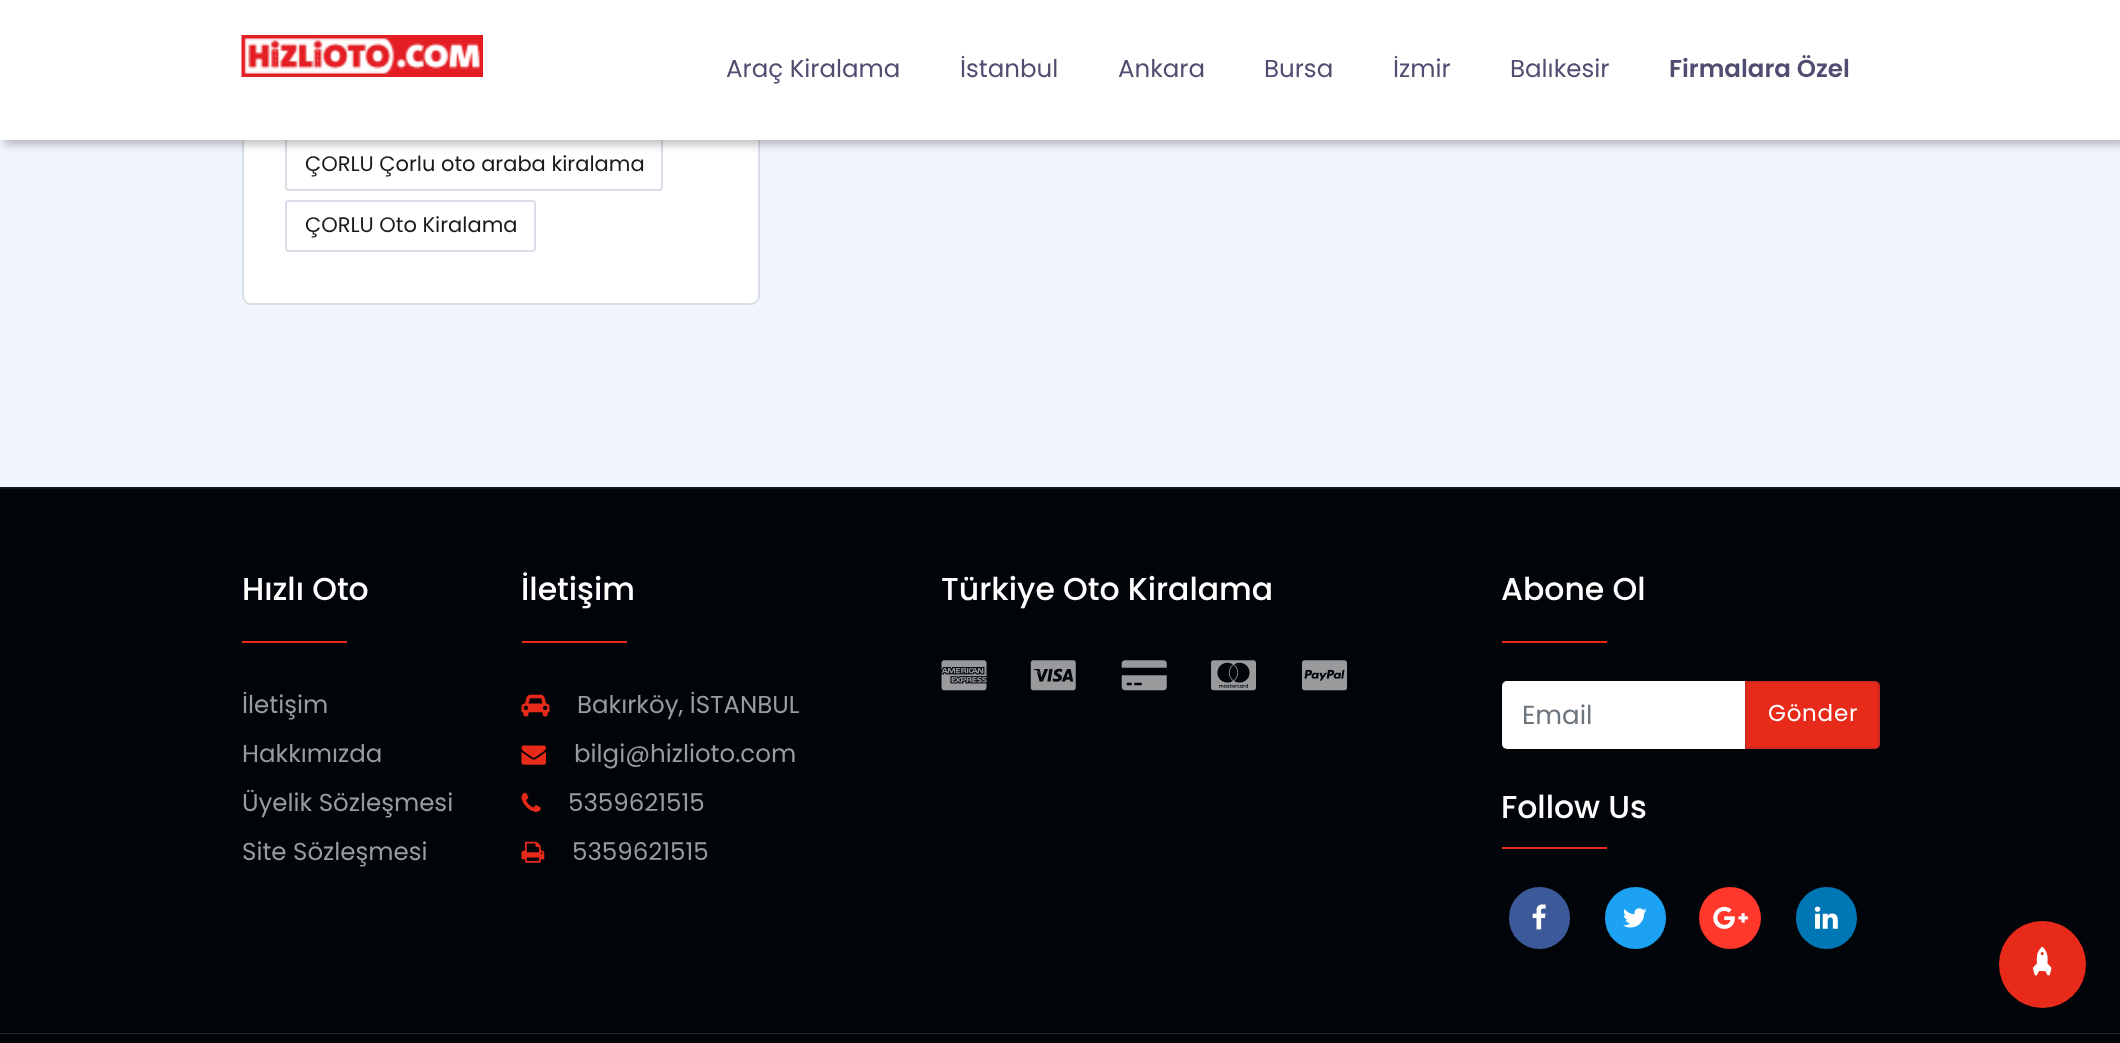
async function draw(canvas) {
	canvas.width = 2120;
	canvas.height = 1043;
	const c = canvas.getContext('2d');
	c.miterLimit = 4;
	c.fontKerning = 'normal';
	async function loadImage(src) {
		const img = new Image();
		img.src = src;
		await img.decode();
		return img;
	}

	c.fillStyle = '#f1f5fd';
	c.fillRect(0, 0, 2120, 1043);
	c.fillStyle = '#fff';
	c.beginPath();
	c.roundRect(243, -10, 516, 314, 8);
	c.fill();
	c.strokeStyle = '#d8dde6';
	c.lineWidth = 2;
	c.stroke();
	c.beginPath();
	c.roundRect(286, 139, 376, 51, 3);
	c.stroke();
	c.fillStyle = '#0000003d';
	c.filter = 'blur(4px)';
	c.beginPath();
	c.rect(4, 5, 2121, 140);
	c.fill();
	c.filter = 'none';
	c.fillStyle = '#fff';
	c.fillRect(0, 0, 2120, 140);
	c.drawImage(await loadImage('img1.png'), 241, 35, 242, 42);
	c.font = '24.5px Poppins';
	c.fillStyle = '#504e70';
	for (const [text, x, y] of [
		['Araç Kiralama', 726, 77],
		['İstanbul', 960, 77],
		['Ankara', 1118, 77],
		['Bursa', 1264, 77],
		['İzmir', 1393, 77],
		['Balıkesir', 1510, 77],
	]) {
		c.fillText(text, x, y);
	}
	c.font = '600 24.5px Poppins';
	c.fillText('Firmalara Özel', 1669, 77);
	c.font = '21px Poppins';
	c.fillStyle = '#1a1a1a';
	c.fillText('ÇORLU Çorlu oto araba kiralama', 305, 171);
	c.beginPath();
	c.roundRect(286, 201, 249, 50, 3);
	c.stroke();
	c.fillText('ÇORLU Oto Kiralama', 305, 232);
	for (const [x, y, w, h, color] of [
		[0, 489, 2120, 544, '#010408'],
		[0, 487, 2120, 2, '#12161b'],
		[0, 1033, 2120, 1, '#22272f'],
	]) {
		c.fillStyle = color;
		c.fillRect(x, y, w, h);
	}
	c.font = '500 31.5px Poppins';
	c.fillStyle = '#fff';
	c.fillText('Hızlı Oto', 242, 600);
	c.fillStyle = '#e72a1a';
	c.fillRect(242, 641, 105, 2);
	c.font = '24.5px Poppins';
	c.fillStyle = '#999b9c';
	for (const [text, x, y] of [
		['İletişim', 242, 713],
		['Hakkımızda', 242, 762],
		['Üyelik Sözleşmesi', 242, 811],
		['Site Sözleşmesi', 242, 860],
	]) {
		c.fillText(text, x, y);
	}
	c.font = '500 31.5px Poppins';
	c.fillStyle = '#fff';
	c.fillText('İletişim', 521, 600);
	c.fillStyle = '#e72a1a';
	c.fillRect(522, 641, 105, 2);
	c.drawImage(await loadImage('img2.png'), 521, 694, 29, 23);
	c.font = '24.5px Poppins';
	c.fillStyle = '#999b9c';
	c.fillText('Bakırköy, İSTANBUL', 577, 713);
	c.drawImage(await loadImage('img3.png'), 521, 745, 25, 20);
	c.fillText('bilgi@hizlioto.com', 574, 762);
	c.drawImage(await loadImage('img4.png'), 521, 792, 20, 20);
	c.fillText('5359621515', 568, 811);
	c.drawImage(await loadImage('img5.png'), 521, 841, 24, 22);
	c.fillText('5359621515', 572, 860);
	c.font = '500 31.5px Poppins';
	c.fillStyle = '#fff';
	c.fillText('Türkiye Oto Kiralama', 941, 600);
	c.drawImage(await loadImage('img6.png'), 941, 660, 46, 31);
	c.drawImage(await loadImage('img7.png'), 1030, 660, 46, 31);
	c.drawImage(await loadImage('img8.png'), 1121, 660, 46, 31);
	c.drawImage(await loadImage('img9.png'), 1211, 660, 45, 31);
	c.drawImage(await loadImage('img10.png'), 1302, 660, 45, 31);
	c.fillText('Abone Ol', 1501, 600);
	c.fillStyle = '#e72a1a';
	c.fillRect(1502, 641, 105, 2);
	c.fillStyle = '#fff';
	c.beginPath();
	c.roundRect(1502, 681, 245, 68, [5, 0, 0, 5]);
	c.fill();
	c.font = '26px Poppins';
	c.fillStyle = '#6c757d';
	c.fillText('Email', 1522, 724);
	c.fillStyle = '#e72a1a';
	c.beginPath();
	c.roundRect(1745, 681, 135, 68, [0, 5, 5, 0]);
	c.fill();
	c.beginPath();
	c.roundRect(1746, 682, 133, 66, [0, 4, 4, 0]);
	c.strokeStyle = '#0028641f';
	c.stroke();
	c.letterSpacing = '0.75px';
	c.font = '23px Poppins';
	c.fillStyle = '#fff';
	c.fillText('Gönder', 1768, 721);
	c.letterSpacing = '0px';
	c.font = '500 31.5px Poppins';
	c.fillText('Follow Us', 1501, 818);
	c.fillStyle = '#e72a1a';
	c.fillRect(1502, 847, 105, 2);
	c.fillStyle = '#3c5a99';
	c.beginPath();
	c.roundRect(1509, 887, 61, 62, 30.5);
	c.fill();
	c.drawImage(await loadImage('img11.png'), 1532, 904, 14, 26);
	c.fillStyle = '#1da1f3';
	c.beginPath();
	c.roundRect(1605, 887, 61, 62, 30.5);
	c.fill();
	c.drawImage(await loadImage('img12.png'), 1623, 908, 24, 20);
	c.fillStyle = '#ff382b';
	c.beginPath();
	c.arc(1730, 918, 31, 0, 2 * Math.PI);
	c.fill();
	c.drawImage(await loadImage('img13.png'), 1713, 906, 35, 23);
	c.fillStyle = '#0077b5';
	c.beginPath();
	c.roundRect(1796, 887, 61, 62, 30.5);
	c.fill();
	c.drawImage(await loadImage('img14.png'), 1814, 906, 24, 23);
	c.fillStyle = '#010408';
	c.fillRect(0, 1034, 2120, 9);
	c.fillStyle = '#e72a1a';
	c.beginPath();
	c.arc(2042.5, 964.5, 43.5, 0, 2 * Math.PI);
	c.fill();
	c.drawImage(await loadImage('img15.png'), 2032, 946, 20, 30);
}

draw(document.querySelector('canvas'));
